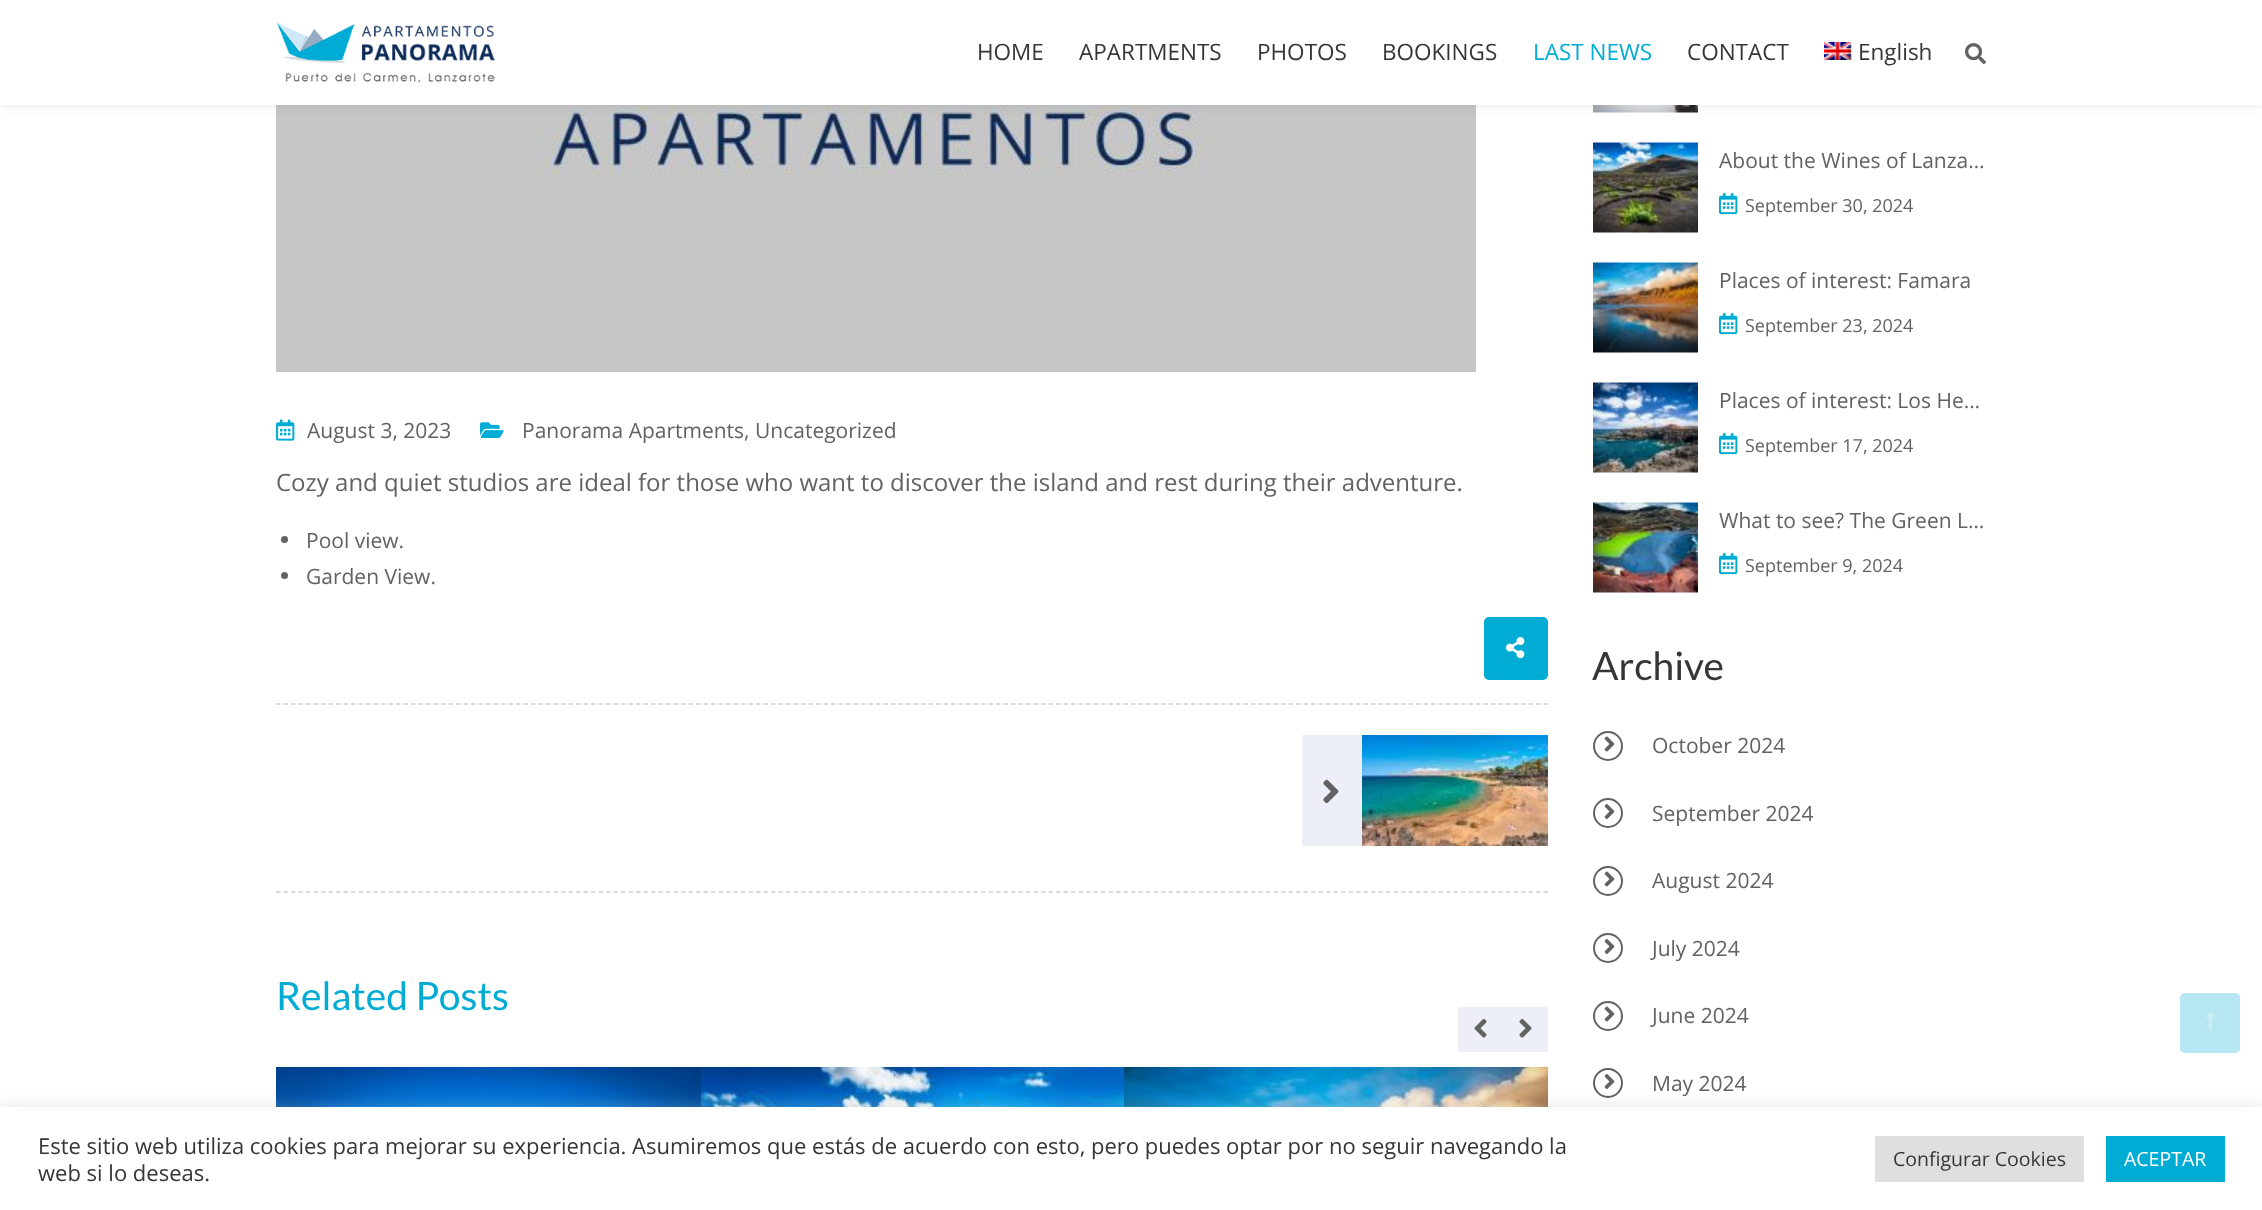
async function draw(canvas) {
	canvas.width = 2262;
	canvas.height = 1210;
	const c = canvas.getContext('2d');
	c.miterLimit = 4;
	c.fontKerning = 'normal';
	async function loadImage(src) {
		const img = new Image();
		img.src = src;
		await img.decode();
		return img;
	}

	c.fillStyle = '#fff';
	c.fillRect(0, 0, 2262, 1210);
	c.drawImage(await loadImage('img4.png'), 276, 105, 1200, 267);
	c.drawImage(await loadImage('img15.png'), 1593, 105, 105, 8);
	c.fillStyle = '#0000001a';
	c.filter = 'blur(6px)';
	c.beginPath();
	c.rect(0, 0, 2262, 105);
	c.fill();
	c.filter = 'none';
	c.fillStyle = '#fff';
	c.fillRect(0, 0, 2262, 105);
	c.drawImage(await loadImage('img1.png'), 276, 22, 219, 61);
	c.font = '22.5px Open Sans';
	c.fillStyle = '#363636';
	for (const [text, x, y] of [
		['HOME', 977, 60],
		['APARTMENTS', 1079, 60],
		['PHOTOS', 1257, 60],
		['BOOKINGS', 1382, 60],
	]) {
		c.fillText(text, x, y);
	}
	c.fillStyle = '#00acd4';
	c.fillText('LAST NEWS', 1533, 60);
	c.fillStyle = '#363636';
	c.fillText('CONTACT', 1687, 60);
	c.drawImage(await loadImage('img2.png'), 1824, 42, 28, 18);
	c.fillText('English', 1858, 60);
	c.drawImage(await loadImage('img3.png'), 1965, 43, 21, 22);
	c.drawImage(await loadImage('img5.png'), 276, 419, 19, 22);
	c.font = '21px Open Sans';
	c.fillStyle = '#626262';
	c.fillText('August 3, 2023', 307, 438);
	c.drawImage(await loadImage('img6.png'), 480, 422, 24, 16);
	c.fillText('Panorama Apartments, Uncategorized', 522, 438);
	c.font = '24px Open Sans';
	c.fillText('Cozy and quiet studios are ideal for those who want to discover the island and rest during their adventure.', 276, 491);
	c.beginPath();
	c.arc(284.5, 539.5, 3.5, 0, 2 * Math.PI);
	c.fill();
	c.font = '21px Open Sans';
	c.fillText('Pool view.', 306, 548);
	c.beginPath();
	c.arc(284.5, 575.5, 3.5, 0, 2 * Math.PI);
	c.fill();
	c.fillText('Garden View.', 306, 584);
	c.fillStyle = '#00acd4';
	c.beginPath();
	c.roundRect(1484, 617, 64, 63, 5);
	c.fill();
	c.drawImage(await loadImage('img7.png'), 1506, 637, 19, 22);
	c.beginPath();
	c.moveTo(276, 704);
	c.lineTo(1548, 704);
	c.strokeStyle = '#d0d0d0';
	c.lineWidth = 1.5;
	c.setLineDash([4.5, 3]);
	c.stroke();
	c.beginPath();
	c.moveTo(276, 892);
	c.lineTo(1548, 892);
	c.stroke();
	c.fillStyle = '#eceff7';
	c.fillRect(1302, 735, 60, 111);
	c.drawImage(await loadImage('img8.png'), 1323, 779, 16, 25);
	c.drawImage(await loadImage('img9.png'), 1362, 735, 186, 111);
	c.font = '39px Lato';
	c.fillStyle = '#00acd4';
	c.fillText('Related Posts', 276, 1010);
	c.fillStyle = '#eceff7';
	c.fillRect(1458, 1007, 90, 45);
	c.drawImage(await loadImage('img10.png'), 1519, 1018, 13, 20);
	c.drawImage(await loadImage('img11.png'), 1474, 1018, 13, 20);
	c.drawImage(await loadImage('img12.png'), 276, 1067, 425, 40);
	c.drawImage(await loadImage('img13.png'), 701, 1067, 423, 40);
	c.drawImage(await loadImage('img14.png'), 1124, 1067, 424, 40);
	c.drawImage(await loadImage('img16.png'), 1593, 142, 105, 91);
	c.font = '21px Open Sans';
	c.fillStyle = '#626262';
	c.fillText('About the Wines of Lanza…', 1719, 168);
	c.drawImage(await loadImage('img17.png'), 1719, 193, 19, 22);
	c.font = '18px Open Sans';
	c.fillText('September 30, 2024', 1745, 212);
	c.drawImage(await loadImage('img18.png'), 1593, 262, 105, 91);
	c.font = '21px Open Sans';
	c.fillText('Places of interest: Famara', 1719, 288);
	c.drawImage(await loadImage('img17.png'), 1719, 313, 19, 22);
	c.font = '18px Open Sans';
	c.fillText('September 23, 2024', 1745, 332);
	c.drawImage(await loadImage('img19.png'), 1593, 382, 105, 91);
	c.font = '21px Open Sans';
	c.fillText('Places of interest: Los He…', 1719, 408);
	c.drawImage(await loadImage('img17.png'), 1719, 433, 19, 22);
	c.font = '18px Open Sans';
	c.fillText('September 17, 2024', 1745, 452);
	c.drawImage(await loadImage('img20.png'), 1593, 502, 105, 91);
	c.font = '21px Open Sans';
	c.fillText('What to see? The Green L…', 1719, 528);
	c.drawImage(await loadImage('img17.png'), 1719, 553, 19, 22);
	c.font = '18px Open Sans';
	c.fillText('September 9, 2024', 1745, 572);
	c.font = '39px Lato';
	c.fillStyle = '#363636';
	c.fillText('Archive', 1592, 680);
	c.beginPath();
	c.arc(1608, 746, 14, 0, 2 * Math.PI);
	c.strokeStyle = '#626262';
	c.lineWidth = 2;
	c.setLineDash([]);
	c.stroke();
	c.drawImage(await loadImage('img21.png'), 1604, 736, 11, 16);
	c.font = '21px Open Sans';
	c.fillStyle = '#626262';
	c.fillText('October 2024', 1652, 753);
	c.beginPath();
	c.arc(1608, 813, 14, 0, 2 * Math.PI);
	c.stroke();
	c.drawImage(await loadImage('img22.png'), 1604, 804, 11, 15);
	c.fillText('September 2024', 1652, 821);
	c.beginPath();
	c.arc(1608, 881, 14, 0, 2 * Math.PI);
	c.stroke();
	c.drawImage(await loadImage('img21.png'), 1604, 871, 11, 16);
	c.fillText('August 2024', 1652, 888);
	c.beginPath();
	c.arc(1608, 948, 14, 0, 2 * Math.PI);
	c.stroke();
	c.drawImage(await loadImage('img22.png'), 1604, 939, 11, 15);
	c.fillText('July 2024', 1652, 956);
	c.beginPath();
	c.arc(1608, 1016, 14, 0, 2 * Math.PI);
	c.stroke();
	c.drawImage(await loadImage('img21.png'), 1604, 1006, 11, 16);
	c.fillText('June 2024', 1652, 1023);
	c.beginPath();
	c.arc(1608, 1083, 14, 0, 2 * Math.PI);
	c.stroke();
	c.drawImage(await loadImage('img22.png'), 1604, 1074, 11, 15);
	c.fillText('May 2024', 1652, 1091);
	c.fillStyle = '#b6e7f3';
	c.beginPath();
	c.roundRect(2180, 993, 60, 60, 5);
	c.fill();
	c.drawImage(await loadImage('img23.png'), 2205, 1012, 10, 19);
	c.fillStyle = '#acabab4d';
	c.filter = 'blur(7.5px)';
	c.beginPath();
	c.rect(0, 1106, 2262, 103);
	c.fill();
	c.filter = 'none';
	c.fillStyle = '#fff';
	c.fillRect(0, 1107, 2262, 103);
	c.font = '22px Open Sans';
	c.fillStyle = '#363636';
	c.fillText('Este sitio web utiliza cookies para mejorar su experiencia. Asumiremos que estás de acuerdo con esto, pero puedes optar por no seguir navegando la', 38, 1154);
	c.fillText('web si lo deseas.', 38, 1181);
	c.fillStyle = '#dedfe0';
	c.fillRect(1875, 1136, 209, 46);
	c.font = '19.5px Open Sans';
	c.fillStyle = '#363636';
	c.fillText('Configurar Cookies', 1893, 1166);
	c.fillStyle = '#00acd4';
	c.fillRect(2106, 1136, 119, 46);
	c.fillStyle = '#fff';
	c.fillText('ACEPTAR', 2124, 1166);
}

draw(document.querySelector('canvas'));
